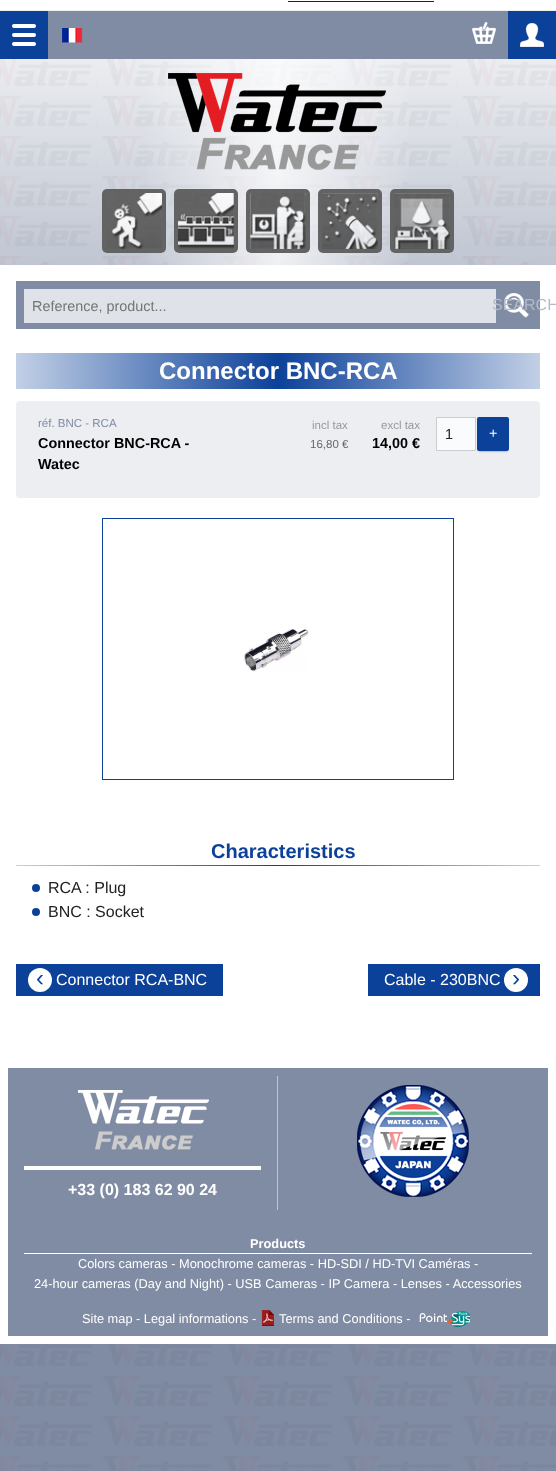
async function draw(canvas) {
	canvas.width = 556;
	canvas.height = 1471;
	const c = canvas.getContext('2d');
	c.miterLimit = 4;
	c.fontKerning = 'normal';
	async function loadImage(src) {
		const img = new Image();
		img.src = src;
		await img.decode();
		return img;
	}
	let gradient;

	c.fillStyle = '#808ca4';
	c.fillRect(0, 0, 556, 1471);
	gradient = c.createLinearGradient(278, -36, 278, 564);
	gradient.addColorStop(0, '#fff');
	gradient.addColorStop(1, '#808ca4');
	c.fillStyle = gradient;
	c.fillRect(0, 59, 556, 206);
	for (const [x, y, w, h, color] of [
		[0, 0, 556, 10, '#fff'],
		[0, 10, 556, 1, '#eee'],
		[288, 1, 146, 1, '#222'],
	]) {
		c.fillStyle = color;
		c.fillRect(x, y, w, h);
	}
	c.drawImage(await loadImage('img1.png'), 0, 59, 556, 1412);
	c.fillStyle = '#0c419a';
	c.fillRect(0, 11, 48, 48);
	c.fillStyle = '#fff';
	c.beginPath();
	c.roundRect(12, 24, 24, 4, 2);
	c.fill();
	c.beginPath();
	c.roundRect(12, 33, 24, 4, 2);
	c.fill();
	c.beginPath();
	c.roundRect(12, 42, 24, 4, 2);
	c.fill();
	c.drawImage(await loadImage('img2.png'), 62, 28, 21, 15);
	c.drawImage(await loadImage('img3.png'), 472, 22, 24, 22);
	c.fillStyle = '#0c419a';
	c.fillRect(508, 11, 48, 48);
	c.drawImage(await loadImage('img4.png'), 520, 23, 24, 24);
	gradient = c.createLinearGradient(0, 162, 556, 162);
	gradient.addColorStop(0.25, '#ffffff00');
	gradient.addColorStop(0.5, '#ffffffbf');
	gradient.addColorStop(0.75, '#ffffff00');
	c.fillStyle = gradient;
	c.fillRect(147, 59, 262, 206);
	c.drawImage(await loadImage('img5.png'), 168, 73, 218, 97);
	c.fillStyle = '#636363';
	c.beginPath();
	c.roundRect(102, 189, 64, 64, 5);
	c.fill();
	c.drawImage(await loadImage('img6.png'), 107, 193, 55, 56);
	c.beginPath();
	c.roundRect(174, 189, 64, 64, 5);
	c.fill();
	c.drawImage(await loadImage('img7.png'), 178, 193, 56, 56);
	c.beginPath();
	c.roundRect(246, 189, 64, 64, 5);
	c.fill();
	c.drawImage(await loadImage('img8.png'), 250, 193, 56, 56);
	c.beginPath();
	c.roundRect(318, 189, 64, 64, 5);
	c.fill();
	c.drawImage(await loadImage('img9.png'), 322, 193, 56, 56);
	c.beginPath();
	c.roundRect(390, 189, 64, 64, 5);
	c.fill();
	c.drawImage(await loadImage('img10.png'), 394, 193, 56, 56);
	c.fillStyle = '#fff';
	c.fillRect(0, 265, 556, 1079);
	c.fillStyle = '#808ca4';
	c.fillRect(16, 281, 524, 48);
	c.drawImage(await loadImage('img11.png'), 504, 293, 25, 25);
	c.fillStyle = '#dfe2e8';
	c.fillRect(24, 289, 472, 34);
	c.font = '14.4px Liberation Sans';
	c.fillStyle = '#757575';
	c.fillText('Reference, product...', 32, 311);
	c.font = '16px Liberation Sans';
	c.fillStyle = '#b3bac8';
	c.fillText('SEARCH', 492, 310);
	gradient = c.createLinearGradient(16, 371, 540, 371);
	gradient.addColorStop(0, '#c2d0e6');
	gradient.addColorStop(0.5, '#0c419a');
	gradient.addColorStop(1, '#c2d0e6');
	c.fillStyle = gradient;
	c.fillRect(16, 353, 524, 36);
	c.font = 'bold 24px Liberation Sans';
	c.fillStyle = '#fff';
	c.fillText('Connector BNC-RCA', 159, 379);
	c.fillStyle = '#eceef1';
	c.beginPath();
	c.roundRect(16, 401, 524, 97, 4);
	c.fill();
	c.font = '11.5px Liberation Sans';
	c.fillStyle = '#808ca4';
	c.fillText('réf. BNC - RCA', 38, 427);
	c.fillStyle = '#999';
	c.fillText('incl tax', 312, 429);
	c.fillStyle = '#666';
	c.fillText('16,80 €', 310, 448);
	c.fillStyle = '#999';
	c.fillText('excl tax', 381, 429);
	c.font = 'bold 14.4px Liberation Sans';
	c.fillStyle = '#000';
	c.fillText('14,00 €', 372, 448);
	c.fillStyle = '#fafbfc';
	c.beginPath();
	c.rect(436.5, 417.5, 39, 33);
	c.fill();
	c.strokeStyle = '#ccc';
	c.stroke();
	c.font = '14.4px Liberation Sans';
	c.fillStyle = '#222';
	c.fillText('1', 445, 439);
	c.fillStyle = '#00000080';
	c.filter = 'blur(1px)';
	c.beginPath();
	c.rect(479, 421, 28, 30);
	c.fill();
	c.filter = 'none';
	c.fillStyle = '#0c419a';
	c.beginPath();
	c.roundRect(477, 417, 32, 34, 2);
	c.fill();
	c.fillStyle = '#fff';
	c.fillText('+', 489, 438);
	c.font = 'bold 14.4px Liberation Sans';
	c.fillStyle = '#000';
	c.fillText('Connector BNC-RCA -', 38, 448);
	c.fillText('Watec', 38, 469);
	c.strokeStyle = '#0c419a';
	c.strokeRect(102.5, 518.5, 351, 261);
	c.drawImage(await loadImage('img12.png'), 244, 629, 65, 43);
	gradient = c.createLinearGradient(16, 866, 540, 866);
	gradient.addColorStop(0, '#c2d0e6');
	gradient.addColorStop(0.5, '#0c419a');
	gradient.addColorStop(1, '#c2d0e6');
	c.fillStyle = gradient;
	c.fillRect(16, 865, 524, 1);
	c.font = 'bold 20px Liberation Sans';
	c.fillStyle = '#0c419a';
	c.fillText('Characteristics', 211, 858);
	c.beginPath();
	c.arc(36, 888, 4, 0, 2 * Math.PI);
	c.fill();
	c.font = '16px Liberation Sans';
	c.fillStyle = '#222';
	c.fillText('RCA : Plug', 48, 893);
	c.fillStyle = '#0c419a';
	c.beginPath();
	c.arc(36, 912, 4, 0, 2 * Math.PI);
	c.fill();
	c.fillStyle = '#222';
	c.fillText('BNC : Socket', 48, 917);
	c.fillStyle = '#0c419a';
	c.fillRect(16, 964, 207, 32);
	c.fillStyle = '#fff';
	c.beginPath();
	c.arc(40, 980, 12, 0, 2 * Math.PI);
	c.fill();
	c.font = '24px Liberation Sans';
	c.fillStyle = '#0c419a';
	c.fillText('‹', 36, 986);
	c.font = '16px Liberation Sans';
	c.fillStyle = '#fff';
	c.fillText('Connector RCA-BNC', 56, 985);
	c.fillStyle = '#0c419a';
	c.fillRect(368, 964, 172, 32);
	c.fillStyle = '#fff';
	c.fillText('Cable - 230BNC', 384, 985);
	c.beginPath();
	c.arc(516, 980, 12, 0, 2 * Math.PI);
	c.fill();
	c.font = '24px Liberation Sans';
	c.fillStyle = '#0c419a';
	c.fillText('›', 512, 986);
	c.fillStyle = '#808ca4';
	c.fillRect(8, 1068, 540, 268);
	c.fillStyle = '#c0c6d2';
	c.fillRect(277, 1076, 1, 134);
	c.drawImage(await loadImage('img13.png'), 78, 1090, 131, 60);
	c.fillStyle = '#fff';
	c.fillRect(24, 1166, 237, 4);
	c.font = 'bold 16px Liberation Sans';
	c.fillText('+33 (0) 183 62 90 24', 68, 1195);
	c.drawImage(await loadImage('img14.png'), 357, 1085, 112, 112);
	c.fillRect(24, 1253, 508, 1);
	c.font = 'bold 12.8px Liberation Sans';
	c.fillText('Products', 250, 1248);
	c.font = '12.8px Liberation Sans';
	for (const [text, x, y] of [
		['Colors cameras - Monochrome cameras - HD-SDI / HD-TVI Caméras -', 78, 1268],
		['24-hour cameras (Day and Night) - USB Cameras - IP Camera - Lenses - Accessories', 34, 1288],
		['Site map - Legal informations -', 82, 1323],
	]) {
		c.fillText(text, x, y);
	}
	c.drawImage(await loadImage('img15.png'), 261, 1310, 13, 16);
	c.fillText('Terms and Conditions -', 279, 1323);
	c.drawImage(await loadImage('img16.png'), 419, 1311, 51, 16);
}

draw(document.querySelector('canvas'));
